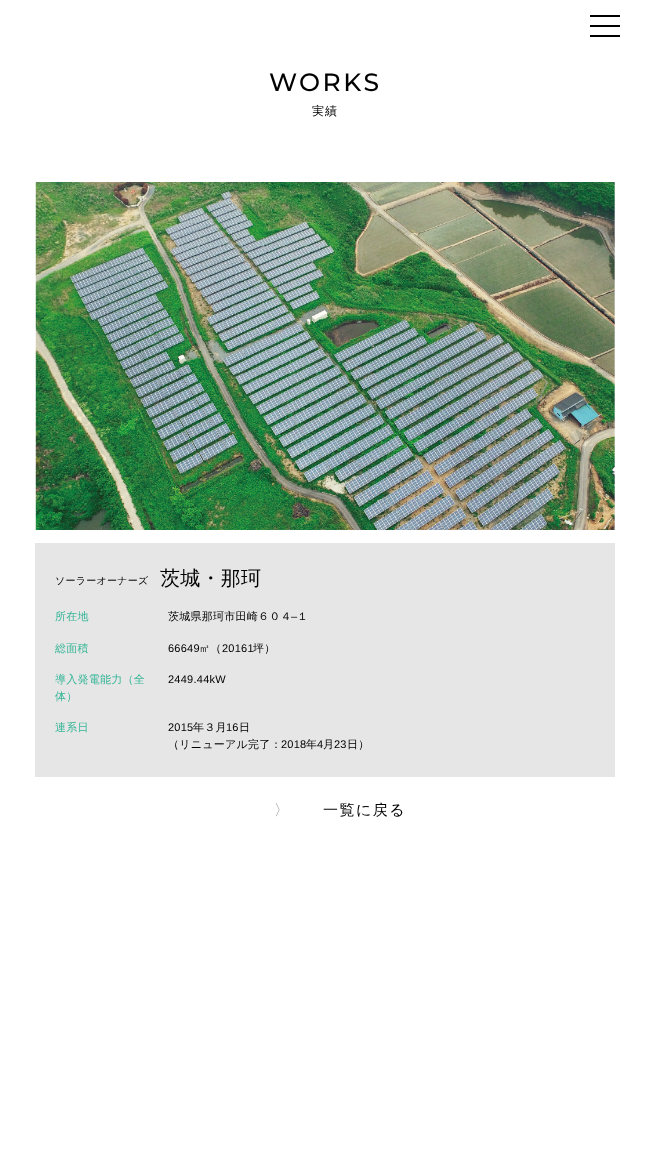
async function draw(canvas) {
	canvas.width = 650;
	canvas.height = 1165;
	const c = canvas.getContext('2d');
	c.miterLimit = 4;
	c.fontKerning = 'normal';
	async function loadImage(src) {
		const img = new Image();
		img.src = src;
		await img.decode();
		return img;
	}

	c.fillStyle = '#fff';
	c.fillRect(0, 0, 650, 1165);
	for (const [x, y, w, h, color] of [
		[590, 15, 30, 2, '#000'],
		[590, 25, 30, 2, '#000'],
		[590, 35, 30, 2, '#000'],
	]) {
		c.fillStyle = color;
		c.fillRect(x, y, w, h);
	}
	c.letterSpacing = '2.5px';
	c.font = '500 25px Montserrat';
	c.fillText('WORKS', 269, 91);
	c.letterSpacing = '1px';
	c.font = '500 12px WenQuanYi Zen Hei';
	c.fillText('実績', 312, 115);
	c.drawImage(await loadImage('img1.png'), 35, 182, 580, 348);
	c.fillStyle = '#e6e6e6';
	c.fillRect(35, 543, 580, 234);
	c.letterSpacing = '0.25px';
	c.font = '500 10px WenQuanYi Zen Hei';
	c.fillStyle = '#000';
	c.fillText('ソーラーオーナーズ', 55, 584);
	c.font = '500 20px WenQuanYi Zen Hei';
	c.fillText('茨城・那珂', 160, 585);
	c.font = '500 11px WenQuanYi Zen Hei';
	c.fillStyle = '#35b597';
	c.fillText('所在地', 55, 620);
	c.fillStyle = '#000';
	c.fillText('茨城県那珂市田崎６０４', 168, 620);
	c.font = '11px Liberation Sans';
	c.fillText('‒', 291, 620);
	c.font = '500 11px WenQuanYi Zen Hei';
	c.fillText('１', 297, 620);
	c.fillStyle = '#35b597';
	c.fillText('総面積', 55, 652);
	c.font = '11px Liberation Sans';
	c.fillStyle = '#000';
	c.fillText('66649', 168, 652);
	c.font = '500 11px WenQuanYi Zen Hei';
	c.fillText('㎡（', 199, 652);
	c.font = '11px Liberation Sans';
	c.fillText('20161', 222, 652);
	c.font = '500 11px WenQuanYi Zen Hei';
	c.fillText('坪）', 253, 652);
	c.fillStyle = '#35b597';
	c.fillText('導入発電能力（全', 55, 683);
	c.fillText('体）', 55, 700);
	c.font = '11px Liberation Sans';
	c.fillStyle = '#000';
	c.fillText('2449.44kW', 168, 683);
	c.font = '500 11px WenQuanYi Zen Hei';
	c.fillStyle = '#35b597';
	c.fillText('連系日', 55, 731);
	c.font = '11px Liberation Sans';
	c.fillStyle = '#000';
	c.fillText('2015', 168, 731);
	c.font = '500 11px WenQuanYi Zen Hei';
	c.fillText('年３月', 193, 731);
	c.font = '11px Liberation Sans';
	c.fillText('16', 226, 731);
	c.font = '500 11px WenQuanYi Zen Hei';
	c.fillText('日', 239, 731);
	c.fillText('（リニューアル完了：', 168, 748);
	c.font = '11px Liberation Sans';
	c.fillText('2018', 281, 748);
	c.font = '500 11px WenQuanYi Zen Hei';
	c.fillText('年', 306, 748);
	c.font = '11px Liberation Sans';
	c.fillText('4', 317, 748);
	c.font = '500 11px WenQuanYi Zen Hei';
	c.fillText('月', 323, 748);
	c.font = '11px Liberation Sans';
	c.fillText('23', 334, 748);
	c.font = '500 11px WenQuanYi Zen Hei';
	c.fillText('日）', 347, 748);
	c.font = '500 15px WenQuanYi Zen Hei';
	c.fillStyle = '#999';
	c.fillText('〉', 274, 815);
	c.letterSpacing = '1.5px';
	c.fillStyle = '#000';
	c.fillText('一覧に戻る', 323, 815);
}

draw(document.querySelector('canvas'));
